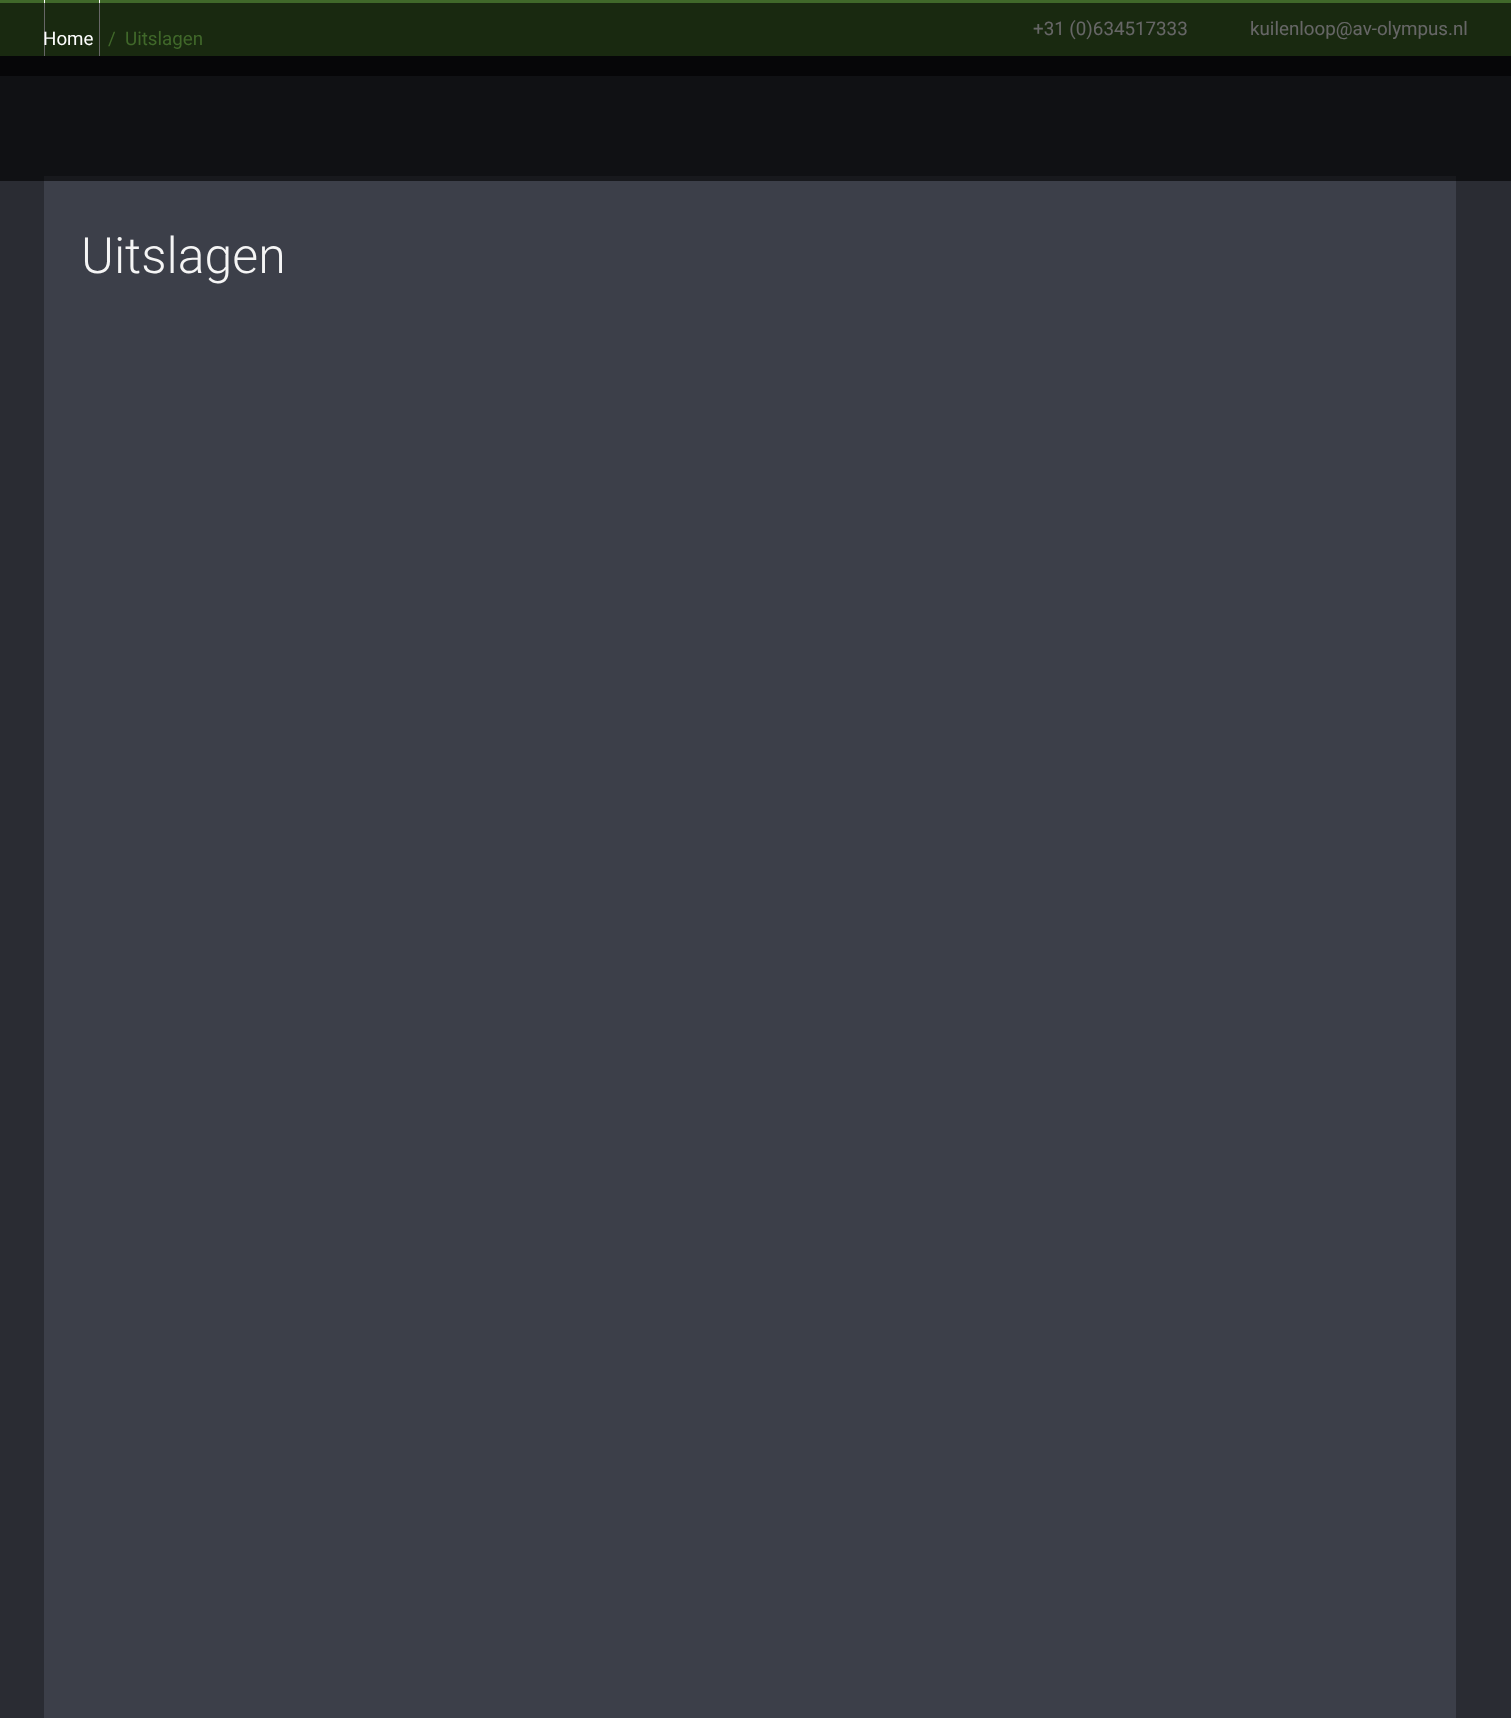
async function draw(canvas) {
	canvas.width = 1511;
	canvas.height = 1718;
	const c = canvas.getContext('2d');
	c.miterLimit = 4;
	c.fontKerning = 'normal';

	c.fillStyle = '#2a2c33';
	c.fillRect(0, 0, 1511, 1718);
	for (const [x, y, w, h, color] of [
		[0, 0, 1511, 56, '#40682a'],
		[99, 0, 1, 56, '#fff'],
		[44, 0, 1, 56, '#fff'],
	]) {
		c.fillStyle = color;
		c.fillRect(x, y, w, h);
	}
	c.font = '18.75px Roboto';
	c.fillText('+31 (0)634517333', 1033, 35);
	c.fillText('kuilenloop@av-olympus.nl', 1250, 35);
	c.fillStyle = '#00000099';
	c.fillRect(0, 3, 1511, 73);
	c.fillStyle = '#fff';
	c.fillText('Home', 43, 45);
	c.fillStyle = '#40682a';
	c.fillText('/', 108, 45);
	c.fillText('Uitslagen', 125, 45);
	c.fillStyle = '#3c3f49';
	c.fillRect(44, 176, 1412, 1542);
	c.fillStyle = '#00000099';
	c.fillRect(0, 56, 1511, 125);
	c.font = '300 50px Roboto';
	c.fillStyle = '#f5f5f5';
	c.fillText('Uitslagen', 81, 273);
}

draw(document.querySelector('canvas'));
